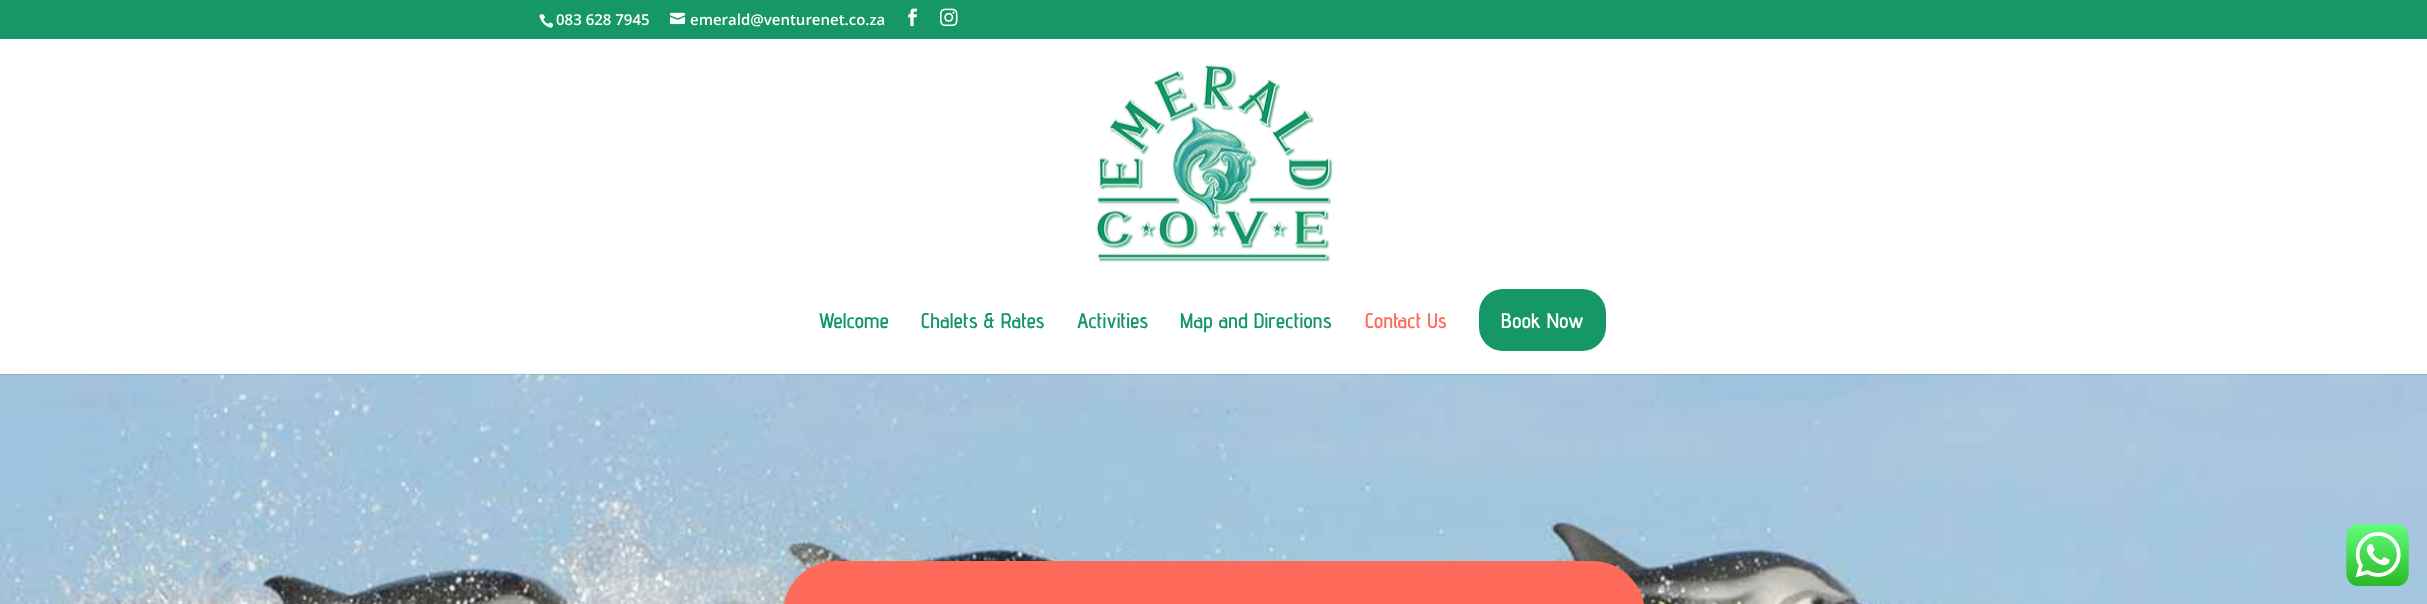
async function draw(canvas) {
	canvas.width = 2427;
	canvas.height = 604;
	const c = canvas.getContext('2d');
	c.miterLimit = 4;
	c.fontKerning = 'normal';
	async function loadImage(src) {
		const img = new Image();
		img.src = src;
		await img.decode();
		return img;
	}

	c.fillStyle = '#fff';
	c.fillRect(0, 0, 2427, 604);
	c.fillStyle = '#159768';
	c.fillRect(0, 0, 2427, 39);
	c.drawImage(await loadImage('img1.png'), 539, 14, 15, 14);
	c.font = '600 15px Open Sans';
	c.fillStyle = '#fff';
	c.fillText('083 628 7945', 556, 25);
	c.drawImage(await loadImage('img2.png'), 670, 12, 15, 13);
	c.fillText('emerald@venturenet.co.za', 690, 25);
	c.drawImage(await loadImage('img3.png'), 908, 8, 9, 19);
	c.drawImage(await loadImage('img4.png'), 940, 8, 18, 19);
	c.drawImage(await loadImage('img6.png'), 0, 374, 2427, 230);
	c.fillStyle = '#0000001a';
	c.beginPath();
	c.moveTo(0, 374);
	c.lineTo(0, 375);
	c.lineTo(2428, 375);
	c.lineTo(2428, 40);
	c.lineTo(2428, 374);
	c.closePath();
	c.fill();
	c.drawImage(await loadImage('img5.png'), 1095, 64, 238, 198);
	c.font = '600 21.25px Advent Pro';
	c.fillStyle = '#159768';
	for (const [text, x, y] of [
		['Welcome', 819, 328],
		['Chalets & Rates', 921, 328],
		['Activities', 1077, 328],
		['Map and Directions', 1180, 328],
	]) {
		c.fillText(text, x, y);
	}
	c.fillStyle = '#ff6b5a';
	c.fillText('Contact Us', 1365, 328);
	c.fillStyle = '#159768';
	c.beginPath();
	c.roundRect(1479, 289, 127, 62, 24);
	c.fill();
	c.fillStyle = '#fff';
	c.fillText('Book Now', 1501, 328);
	c.fillStyle = '#ff6b5a';
	c.beginPath();
	c.roundRect(783, 561, 862, 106, 63);
	c.fill();
	c.drawImage(await loadImage('img7.png'), 2346, 524, 63, 62);
}

draw(document.querySelector('canvas'));
